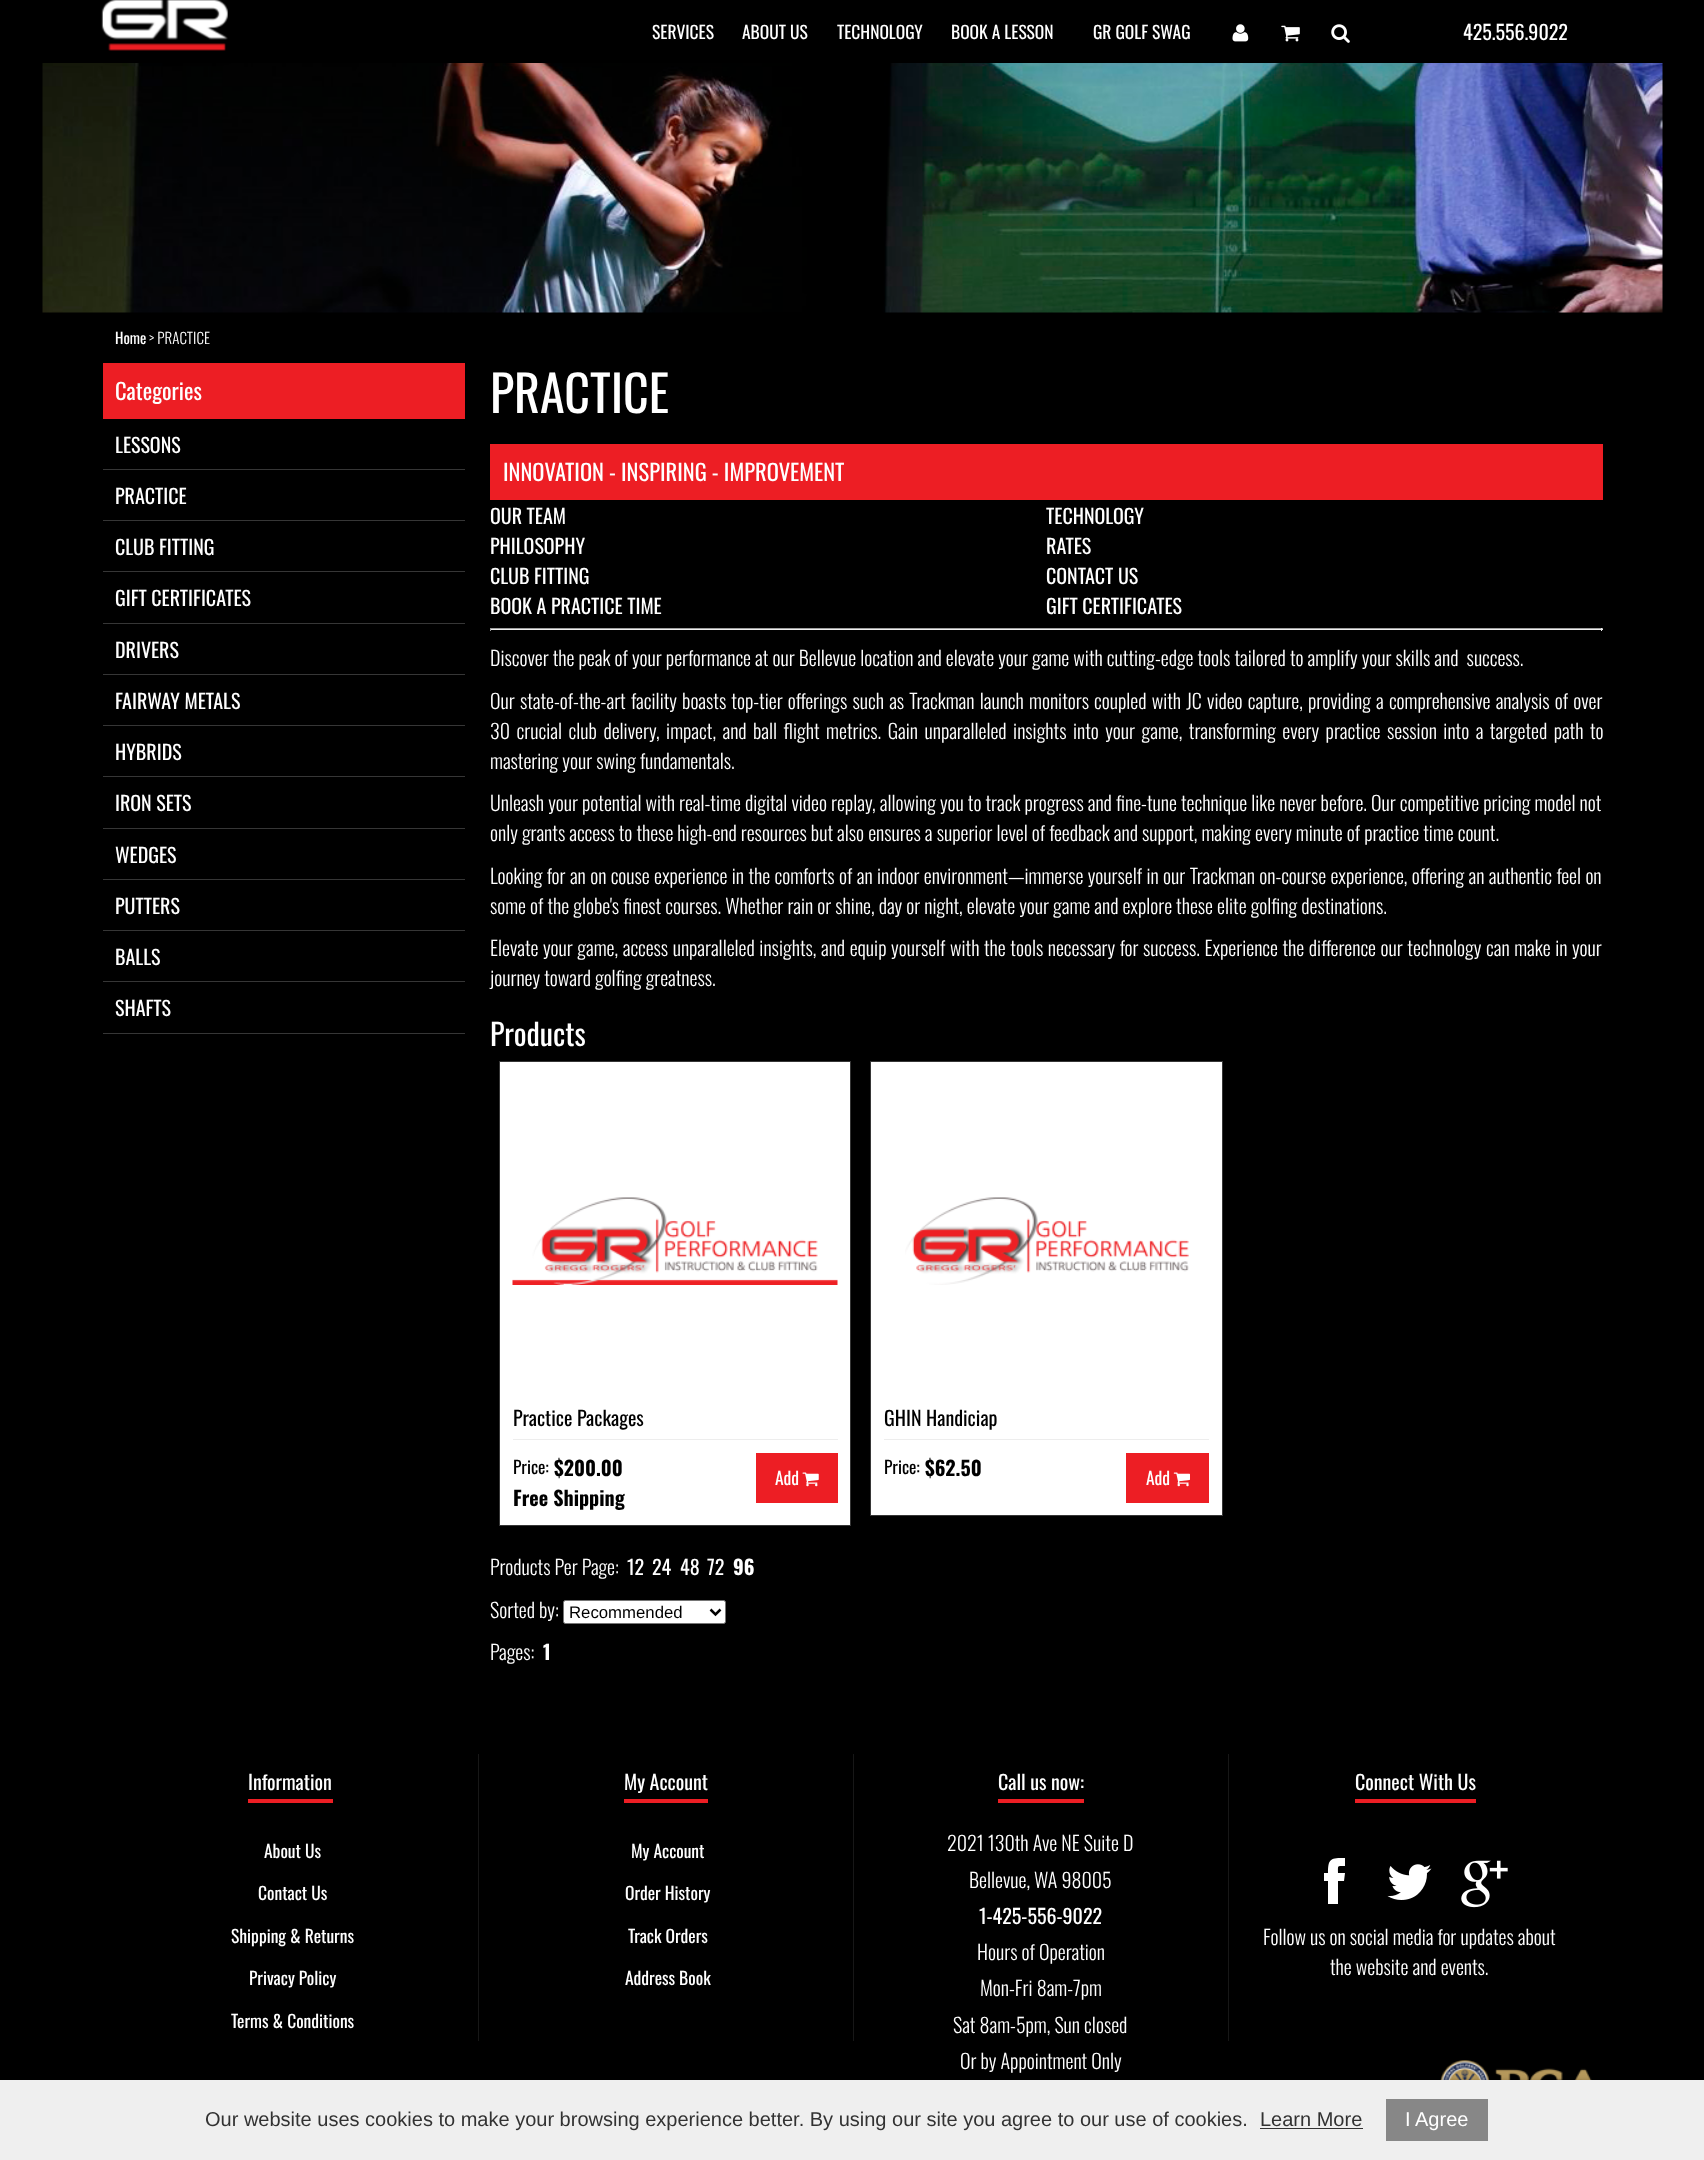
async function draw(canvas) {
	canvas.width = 1704;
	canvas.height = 2160;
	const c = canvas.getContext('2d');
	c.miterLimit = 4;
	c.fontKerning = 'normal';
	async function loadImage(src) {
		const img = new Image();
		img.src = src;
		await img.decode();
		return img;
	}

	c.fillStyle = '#000';
	c.fillRect(0, 0, 1704, 2160);
	c.drawImage(await loadImage('img1.png'), 101, 0, 127, 51);
	c.font = '17.5px Oswald';
	c.fillStyle = '#fff';
	for (const [text, x, y] of [
		['SERVICES', 652, 39],
		['ABOUT US', 742, 39],
		['TECHNOLOGY', 837, 39],
		['BOOK A LESSON', 951, 39],
		['GR GOLF SWAG', 1093, 39],
	]) {
		c.fillText(text, x, y);
	}
	c.drawImage(await loadImage('img2.png'), 1232, 24, 17, 18);
	c.drawImage(await loadImage('img3.png'), 1281, 25, 19, 17);
	c.drawImage(await loadImage('img4.png'), 1331, 24, 19, 19);
	c.font = '20px Oswald';
	c.fillText('425.556.9022', 1463, 40);
	c.drawImage(await loadImage('img5.png'), 42, 63, 1621, 250);
	c.font = '15px Oswald';
	c.fillText('Home', 115, 344);
	c.font = '300 15px Oswald';
	c.fillText('> PRACTICE', 149, 344);
	c.fillStyle = '#ed1e24';
	c.fillRect(103, 363, 362, 56);
	c.font = '22.5px Oswald';
	c.fillStyle = '#fff';
	c.fillText('Categories', 115, 400);
	c.fillStyle = '#363636';
	c.fillRect(103, 469, 362, 1);
	c.font = '20px Oswald';
	c.fillStyle = '#fff';
	c.fillText('LESSONS', 115, 453);
	c.fillStyle = '#363636';
	c.fillRect(103, 520, 362, 1);
	c.fillStyle = '#fff';
	c.fillText('PRACTICE', 115, 504);
	c.fillStyle = '#363636';
	c.fillRect(103, 571, 362, 1);
	c.fillStyle = '#fff';
	c.fillText('CLUB FITTING', 115, 555);
	c.fillStyle = '#363636';
	c.fillRect(103, 623, 362, 1);
	c.fillStyle = '#fff';
	c.fillText('GIFT CERTIFICATES', 115, 606);
	c.fillStyle = '#363636';
	c.fillRect(103, 674, 362, 1);
	c.fillStyle = '#fff';
	c.fillText('DRIVERS', 115, 658);
	c.fillStyle = '#363636';
	c.fillRect(103, 725, 362, 1);
	c.fillStyle = '#fff';
	c.fillText('FAIRWAY METALS', 115, 709);
	c.fillStyle = '#363636';
	c.fillRect(103, 776, 362, 1);
	c.fillStyle = '#fff';
	c.fillText('HYBRIDS', 115, 760);
	c.fillStyle = '#363636';
	c.fillRect(103, 828, 362, 1);
	c.fillStyle = '#fff';
	c.fillText('IRON SETS', 115, 811);
	c.fillStyle = '#363636';
	c.fillRect(103, 879, 362, 1);
	c.fillStyle = '#fff';
	c.fillText('WEDGES', 115, 863);
	c.fillStyle = '#363636';
	c.fillRect(103, 930, 362, 1);
	c.fillStyle = '#fff';
	c.fillText('PUTTERS', 115, 914);
	c.fillStyle = '#363636';
	c.fillRect(103, 981, 362, 1);
	c.fillStyle = '#fff';
	c.fillText('BALLS', 115, 965);
	c.fillStyle = '#363636';
	c.fillRect(103, 1033, 362, 1);
	c.fillStyle = '#fff';
	c.fillText('SHAFTS', 115, 1016);
	c.font = '50px Oswald';
	c.fillText('PRACTICE', 490, 413);
	c.fillStyle = '#ed1e24';
	c.fillRect(490, 444, 1113, 56);
	c.font = '22.5px Oswald';
	c.fillStyle = '#fff';
	c.fillText('INNOVATION - INSPIRING - IMPROVEMENT', 503, 481);
	c.font = '20px Oswald';
	for (const [text, x, y] of [
		['OUR TEAM', 490, 524],
		['PHILOSOPHY', 490, 554],
		['CLUB FITTING', 490, 584],
		['BOOK A PRACTICE TIME', 490, 614],
		['TECHNOLOGY', 1046, 524],
		['RATES', 1046, 554],
		['CONTACT US', 1046, 584],
		['GIFT CERTIFICATES', 1046, 614],
	]) {
		c.fillText(text, x, y);
	}
	for (const [x, y, w, h, color] of [
		[490, 628, 1113, 1, '#9f9f9f'],
		[1601, 628, 1, 3, '#eee'],
		[490, 629, 1113, 1, '#eee'],
		[490, 628, 1, 3, '#9f9f9f'],
	]) {
		c.fillStyle = color;
		c.fillRect(x, y, w, h);
	}
	c.font = '300 20px Oswald';
	c.fillStyle = '#fff';
	c.fillText('Discover the peak of your performance at our Bellevue location and elevate your game with cutting-edge tools tailored to amplify your skills and  success.', 490, 666);
	c.wordSpacing = '1.1px';
	c.fillText('Our state-of-the-art facility boasts top-tier offerings such as Trackman launch monitors coupled with JC video capture, providing a comprehensive analysis of over', 490, 709);
	c.wordSpacing = '2.4px';
	c.fillText('30 crucial club delivery, impact, and ball flight metrics. Gain unparalleled insights into your game, transforming every practice session into a targeted path to', 490, 739);
	c.wordSpacing = '0px';
	for (const [text, x, y] of [
		['mastering your swing fundamentals.', 490, 769],
		['Unleash your potential with real-time digital video replay, allowing you to track progress and fine-tune technique like never before. Our competitive pricing model not', 490, 811],
		['only grants access to these high-end resources but also ensures a superior level of feedback and support, making every minute of practice time count.', 490, 841],
	]) {
		c.fillText(text, x, y);
	}
	c.wordSpacing = '0.3px';
	c.fillText('Looking for an on couse experience in the comforts of an indoor environment—immerse yourself in our Trackman on-course experience, offering an authentic feel on', 490, 884);
	c.wordSpacing = '0px';
	c.fillText('some of the globe\'s finest courses. Whether rain or shine, day or night, elevate your game and explore these elite golfing destinations.', 490, 914);
	c.wordSpacing = '0.5px';
	c.fillText('Elevate your game, access unparalleled insights, and equip yourself with the tools necessary for success. Experience the difference our technology can make in your', 490, 956);
	c.wordSpacing = '0px';
	c.fillText('journey toward golfing greatness.', 490, 986);
	c.font = '30px Oswald';
	c.fillText('Products', 490, 1046);
	c.beginPath();
	c.rect(499.5, 1061.5, 351, 464);
	c.fill();
	c.strokeStyle = '#363636';
	c.stroke();
	c.drawImage(await loadImage('img6.png'), 512, 1197, 326, 88);
	c.fillStyle = '#ededed';
	c.fillRect(513, 1439, 325, 1);
	c.font = '20px Oswald';
	c.fillStyle = '#000';
	c.fillText('Practice Packages', 513, 1426);
	c.font = '17.5px Oswald';
	c.fillText('Price:', 513, 1474);
	c.font = 'bold 20px Oswald';
	c.fillText('$200.00', 554, 1476);
	c.fillText('Free Shipping', 513, 1506);
	c.fillStyle = '#ed1e24';
	c.fillRect(756, 1453, 82, 50);
	c.font = '17.5px Oswald';
	c.fillStyle = '#fff';
	c.fillText('Add', 775, 1485);
	c.drawImage(await loadImage('img7.png'), 802, 1472, 17, 15);
	c.beginPath();
	c.rect(870.5, 1061.5, 352, 454);
	c.fill();
	c.stroke();
	c.drawImage(await loadImage('img8.png'), 905, 1197, 284, 88);
	c.fillStyle = '#ededed';
	c.fillRect(884, 1439, 325, 1);
	c.font = '20px Oswald';
	c.fillStyle = '#000';
	c.fillText('GHIN Handiciap', 884, 1426);
	c.font = '17.5px Oswald';
	c.fillText('Price:', 884, 1474);
	c.font = 'bold 20px Oswald';
	c.fillText('$62.50', 925, 1476);
	c.fillStyle = '#ed1e24';
	c.fillRect(1126, 1453, 83, 50);
	c.font = '17.5px Oswald';
	c.fillStyle = '#fff';
	c.fillText('Add', 1146, 1485);
	c.drawImage(await loadImage('img9.png'), 1173, 1472, 17, 15);
	c.font = '300 20px Oswald';
	c.fillText('Products Per Page:', 490, 1575);
	c.font = '20px Oswald';
	for (const [text, x, y] of [
		['12', 627, 1575],
		['24', 652, 1575],
		['48', 680, 1575],
		['72', 707, 1575],
	]) {
		c.fillText(text, x, y);
	}
	c.font = 'bold 20px Oswald';
	c.fillText('96', 733, 1575);
	c.font = '300 20px Oswald';
	c.fillText('Sorted by:', 490, 1618);
	c.beginPath();
	c.roundRect(563.5, 1600.5, 162, 23, 2);
	c.fill();
	c.strokeStyle = '#767676';
	c.stroke();
	c.beginPath();
	c.moveTo(710.5, 1609.5);
	c.lineTo(715.5, 1614.5);
	c.lineTo(720.5, 1609.5);
	c.strokeStyle = '#000';
	c.lineWidth = 2.5;
	c.stroke();
	c.font = '16.75px Liberation Sans';
	c.fillStyle = '#000';
	c.fillText('Recommended', 569, 1618);
	c.font = '300 20px Oswald';
	c.fillStyle = '#fff';
	c.fillText('Pages:', 490, 1660);
	c.font = 'bold 20px Oswald';
	c.fillText('1', 543, 1660);
	c.fillStyle = '#ed1e24';
	c.fillRect(248, 1799, 85, 4);
	c.font = '20px Oswald';
	c.fillStyle = '#fff';
	c.fillText('Information', 248, 1790);
	c.font = '17.5px Oswald';
	for (const [text, x, y] of [
		['About Us', 264, 1858],
		['Contact Us', 258, 1900],
		['Shipping & Returns', 231, 1943],
		['Privacy Policy', 249, 1985],
		['Terms & Conditions', 231, 2028],
	]) {
		c.fillText(text, x, y);
	}
	c.fillStyle = '#171717';
	c.fillRect(478, 1754, 1, 287);
	c.fillStyle = '#ed1e24';
	c.fillRect(624, 1799, 84, 4);
	c.font = '20px Oswald';
	c.fillStyle = '#fff';
	c.fillText('My Account', 624, 1790);
	c.font = '17.5px Oswald';
	for (const [text, x, y] of [
		['My Account', 631, 1858],
		['Order History', 625, 1900],
		['Track Orders', 628, 1943],
		['Address Book', 625, 1985],
	]) {
		c.fillText(text, x, y);
	}
	c.fillStyle = '#171717';
	c.fillRect(853, 1754, 1, 287);
	c.fillStyle = '#ed1e24';
	c.fillRect(998, 1799, 86, 4);
	c.font = '20px Oswald';
	c.fillStyle = '#fff';
	c.fillText('Call us now:', 998, 1790);
	c.font = '300 20px Oswald';
	c.fillText('2021 130th Ave NE Suite D', 947, 1851);
	c.fillText('Bellevue, WA 98005', 969, 1888);
	c.font = '20px Oswald';
	c.fillText('1-425-556-9022', 979, 1924);
	c.font = '300 20px Oswald';
	for (const [text, x, y] of [
		['Hours of Operation', 977, 1960],
		['Mon-Fri 8am-7pm', 980, 1996],
		['Sat 8am-5pm, Sun closed', 953, 2033],
		['Or by Appointment Only', 960, 2069],
	]) {
		c.fillText(text, x, y);
	}
	c.fillStyle = '#171717';
	c.fillRect(1228, 1754, 1, 287);
	c.fillStyle = '#ed1e24';
	c.fillRect(1355, 1799, 121, 4);
	c.font = '20px Oswald';
	c.fillStyle = '#fff';
	c.fillText('Connect With Us', 1355, 1790);
	c.beginPath();
	c.moveTo(1338, 1873);
	c.lineTo(1345, 1873);
	c.lineTo(1344, 1881);
	c.lineTo(1338, 1881);
	c.lineTo(1338, 1904);
	c.lineTo(1328, 1904);
	c.lineTo(1328, 1881);
	c.lineTo(1324, 1881);
	c.lineTo(1324, 1873);
	c.lineTo(1328, 1873);
	c.bezierCurveTo(1328, 1858, 1331, 1858, 1345, 1858);
	c.lineTo(1345, 1866);
	c.bezierCurveTo(1337, 1866, 1338, 1865, 1338, 1873);
	c.closePath();
	c.fill();
	c.drawImage(await loadImage('img10.png'), 1387, 1864, 45, 36);
	c.drawImage(await loadImage('img11.png'), 1461, 1860, 47, 48);
	c.font = '300 20px Oswald';
	c.fillText('Follow us on social media for updates about', 1263, 1945);
	c.fillText('the website and events.', 1330, 1975);
	c.drawImage(await loadImage('img12.png'), 1440, 2060, 152, 20);
	c.fillStyle = '#00000099';
	c.filter = 'blur(3px)';
	c.beginPath();
	c.rect(4, 2083, 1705, 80);
	c.fill();
	c.filter = 'none';
	c.fillStyle = '#efefef';
	c.fillRect(0, 2080, 1704, 80);
	c.font = '20px Liberation Sans';
	c.fillStyle = '#323232';
	c.fillText('Our website uses cookies to make your browsing experience better. By using our site you agree to our use of cookies.', 205, 2126);
	c.fillText('Learn More', 1260, 2126);
	c.fillRect(1260, 2128, 103, 1);
	c.fillStyle = '#878787';
	c.fillRect(1386, 2099, 102, 42);
	c.fillStyle = '#fff';
	c.fillText('I Agree', 1405, 2126);
}

draw(document.querySelector('canvas'));
